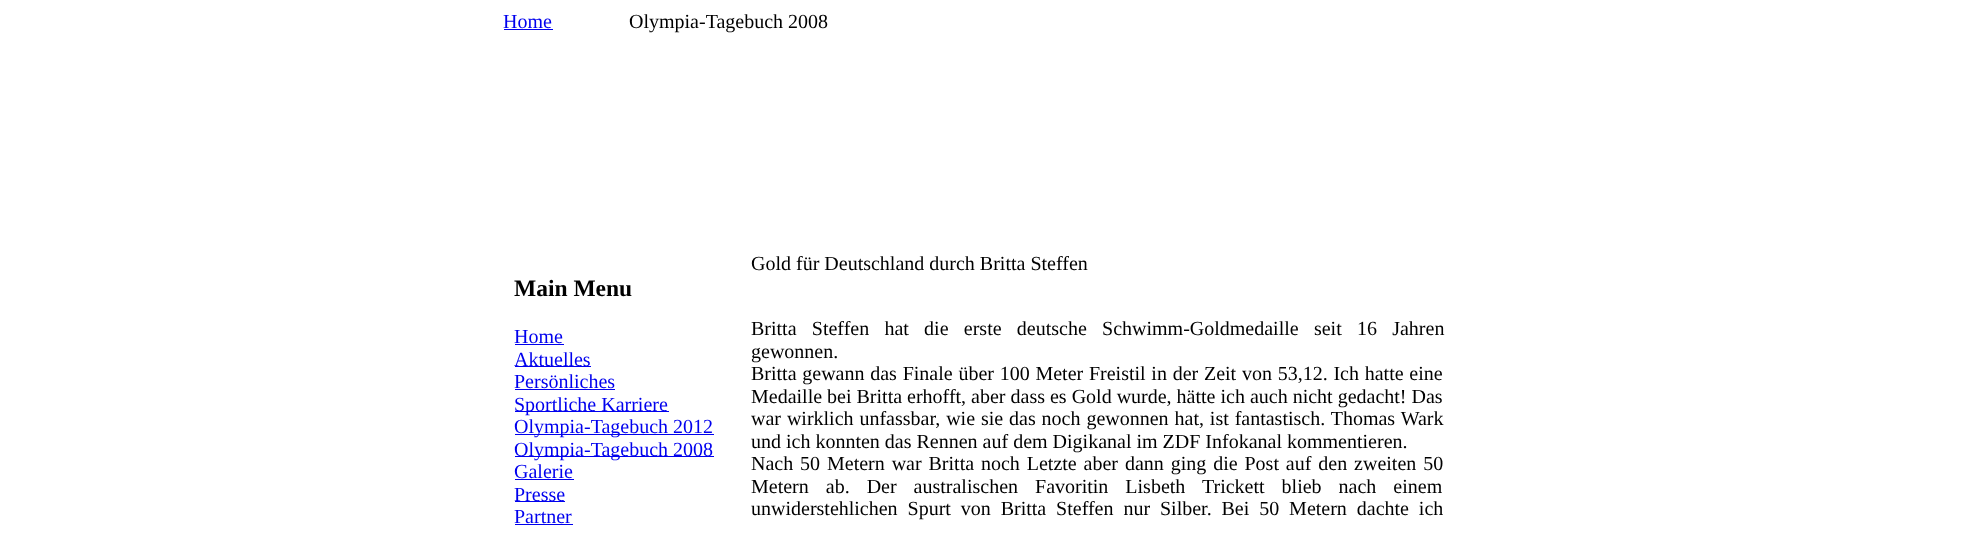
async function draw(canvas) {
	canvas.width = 1968;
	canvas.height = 533;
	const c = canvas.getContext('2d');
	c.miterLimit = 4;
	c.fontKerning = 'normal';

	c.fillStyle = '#fff';
	c.fillRect(0, 0, 1968, 533);
	c.font = '20px Liberation Serif';
	c.fillStyle = '#00e';
	c.fillText('Home', 503, 28);
	c.fillRect(504, 29, 49, 1);
	c.fillStyle = '#000';
	c.fillText('Olympia-Tagebuch 2008', 629, 28);
	c.font = 'bold 23.5px Liberation Serif';
	c.fillText('Main Menu', 514, 296);
	c.font = '20px Liberation Serif';
	c.fillStyle = '#00e';
	c.fillText('Home', 514, 343);
	c.fillRect(515, 344, 49, 1);
	c.fillRect(515, 366, 76, 1);
	c.fillText('Aktuelles', 514, 366);
	c.fillText('Persönliches', 514, 388);
	c.fillRect(515, 389, 100, 1);
	c.fillRect(515, 411, 154, 1);
	c.fillText('Sportliche Karriere', 514, 411);
	c.fillRect(515, 434, 199, 1);
	c.fillText('Olympia-Tagebuch 2012', 514, 433);
	c.fillRect(515, 456, 199, 1);
	c.fillText('Olympia-Tagebuch 2008', 514, 456);
	c.fillText('Galerie', 514, 478);
	c.fillRect(515, 479, 59, 1);
	c.fillRect(515, 501, 50, 1);
	c.fillText('Presse', 514, 501);
	c.fillText('Partner', 514, 523);
	c.fillRect(515, 524, 58, 1);
	c.fillStyle = '#000';
	c.fillText('Gold für Deutschland durch Britta Steffen', 751, 270);
	c.wordSpacing = '10.25px';
	c.fillText('Britta Steffen hat die erste deutsche Schwimm-Goldmedaille seit 16 Jahren', 751, 335);
	c.wordSpacing = '0px';
	c.fillText('gewonnen.', 751, 358);
	c.wordSpacing = '0.75px';
	c.fillText('Britta gewann das Finale über 100 Meter Freistil in der Zeit von 53,12. Ich hatte eine', 751, 380);
	c.wordSpacing = '0px';
	c.fillText('Medaille bei Britta erhofft, aber dass es Gold wurde, hätte ich auch nicht gedacht! Das', 751, 403);
	c.wordSpacing = '0.9px';
	c.fillText('war wirklich unfassbar, wie sie das noch gewonnen hat, ist fantastisch. Thomas Wark', 751, 425);
	c.wordSpacing = '0px';
	c.fillText('und ich konnten das Rennen auf dem Digikanal im ZDF Infokanal kommentieren.', 751, 448);
	c.wordSpacing = '1.9px';
	c.fillText('Nach 50 Metern war Britta noch Letzte aber dann ging die Post auf den zweiten 50', 751, 470);
	c.wordSpacing = '12px';
	c.fillText('Metern ab. Der australischen Favoritin Lisbeth Trickett blieb nach einem', 751, 493);
	c.wordSpacing = '4.9px';
	c.fillText('unwiderstehlichen Spurt von Britta Steffen nur Silber. Bei 50 Metern dachte ich', 751, 515);
}

draw(document.querySelector('canvas'));
